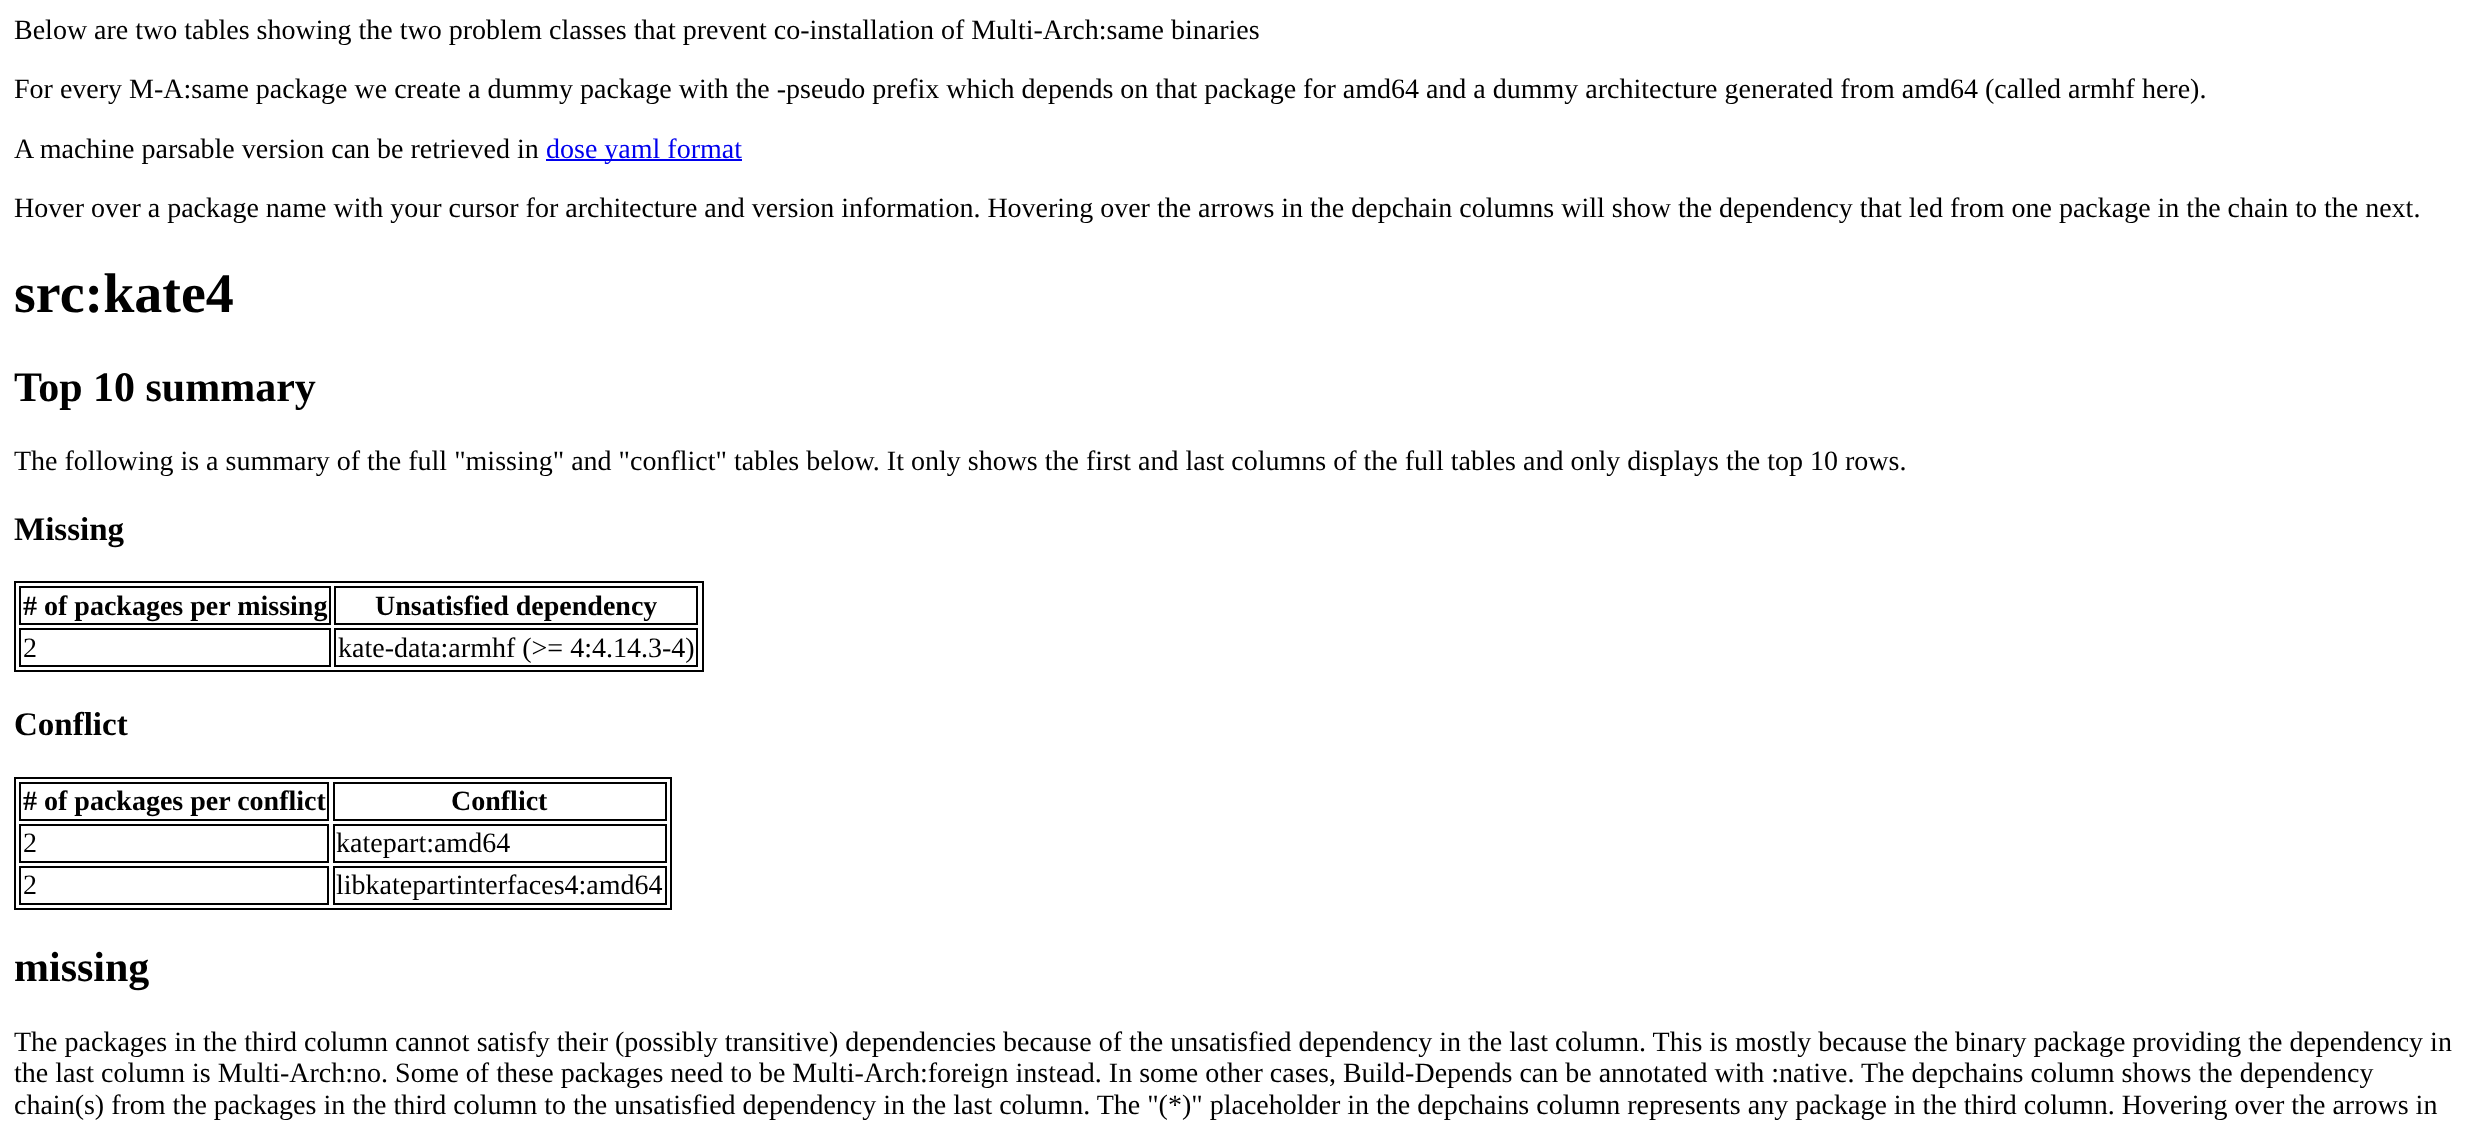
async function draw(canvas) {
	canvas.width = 2472;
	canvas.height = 1134;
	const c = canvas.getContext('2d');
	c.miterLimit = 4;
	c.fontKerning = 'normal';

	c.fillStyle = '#fff';
	c.fillRect(0, 0, 2472, 1134);
	c.font = '28px Liberation Serif';
	c.fillStyle = '#000';
	for (const [text, x, y] of [
		['Below are two tables showing the two problem classes that prevent co-installation of Multi-Arch:same binaries', 14, 39],
		['For every M-A:same package we create a dummy package with the -pseudo prefix which depends on that package for amd64 and a dummy architecture generated from amd64 (called armhf here).', 14, 98],
		['A machine parsable version can be retrieved in', 14, 158],
	]) {
		c.fillText(text, x, y);
	}
	c.fillStyle = '#00e';
	c.fillRect(546, 159, 196, 2);
	c.fillText('dose yaml format', 546, 158);
	c.fillStyle = '#000';
	c.fillText('Hover over a package name with your cursor for architecture and version information. Hovering over the arrows in the depchain columns will show the dependency that led from one package in the chain to the next.', 14, 217);
	c.font = 'bold 56px Liberation Serif';
	c.fillText('src:kate4', 14, 312);
	c.font = 'bold 42px Liberation Serif';
	c.fillText('Top 10 summary', 14, 401);
	c.font = '28px Liberation Serif';
	c.fillText('The following is a summary of the full "missing" and "conflict" tables below. It only shows the first and last columns of the full tables and only displays the top 10 rows.', 14, 470);
	c.font = 'bold 33px Liberation Serif';
	c.fillText('Missing', 14, 540);
	c.strokeStyle = '#000';
	c.lineWidth = 2;
	c.strokeRect(15, 582, 688, 89);
	c.strokeRect(20, 587, 310, 37);
	c.font = 'bold 28px Liberation Serif';
	c.fillText('# of packages per missing', 23, 615);
	c.strokeRect(335, 587, 362, 37);
	c.fillText('Unsatisfied dependency', 375, 615);
	c.strokeRect(20, 629, 310, 37);
	c.font = '28px Liberation Serif';
	c.fillText('2', 23, 657);
	c.strokeRect(335, 629, 362, 37);
	c.fillText('kate-data:armhf (>= 4:4.14.3-4)', 338, 657);
	c.font = 'bold 33px Liberation Serif';
	c.fillText('Conflict', 14, 735);
	c.strokeRect(15, 778, 656, 131);
	c.strokeRect(20, 783, 308, 37);
	c.font = 'bold 28px Liberation Serif';
	c.fillText('# of packages per conflict', 23, 810);
	c.strokeRect(334, 783, 332, 37);
	c.fillText('Conflict', 451, 810);
	c.strokeRect(20, 825, 308, 37);
	c.font = '28px Liberation Serif';
	c.fillText('2', 23, 852);
	c.strokeRect(334, 825, 332, 37);
	c.fillText('katepart:amd64', 336, 852);
	c.strokeRect(20, 867, 308, 37);
	c.fillText('2', 23, 894);
	c.strokeRect(334, 867, 332, 37);
	c.fillText('libkatepartinterfaces4:amd64', 336, 894);
	c.font = 'bold 42px Liberation Serif';
	c.fillText('missing', 14, 981);
	c.font = '28px Liberation Serif';
	for (const [text, x, y] of [
		['The packages in the third column cannot satisfy their (possibly transitive) dependencies because of the unsatisfied dependency in the last column. This is mostly because the binary package providing the dependency in', 14, 1051],
		['the last column is Multi-Arch:no. Some of these packages need to be Multi-Arch:foreign instead. In some other cases, Build-Depends can be annotated with :native. The depchains column shows the dependency', 14, 1082],
		['chain(s) from the packages in the third column to the unsatisfied dependency in the last column. The "(*)" placeholder in the depchains column represents any package in the third column. Hovering over the arrows in', 14, 1114],
	]) {
		c.fillText(text, x, y);
	}
}

draw(document.querySelector('canvas'));
